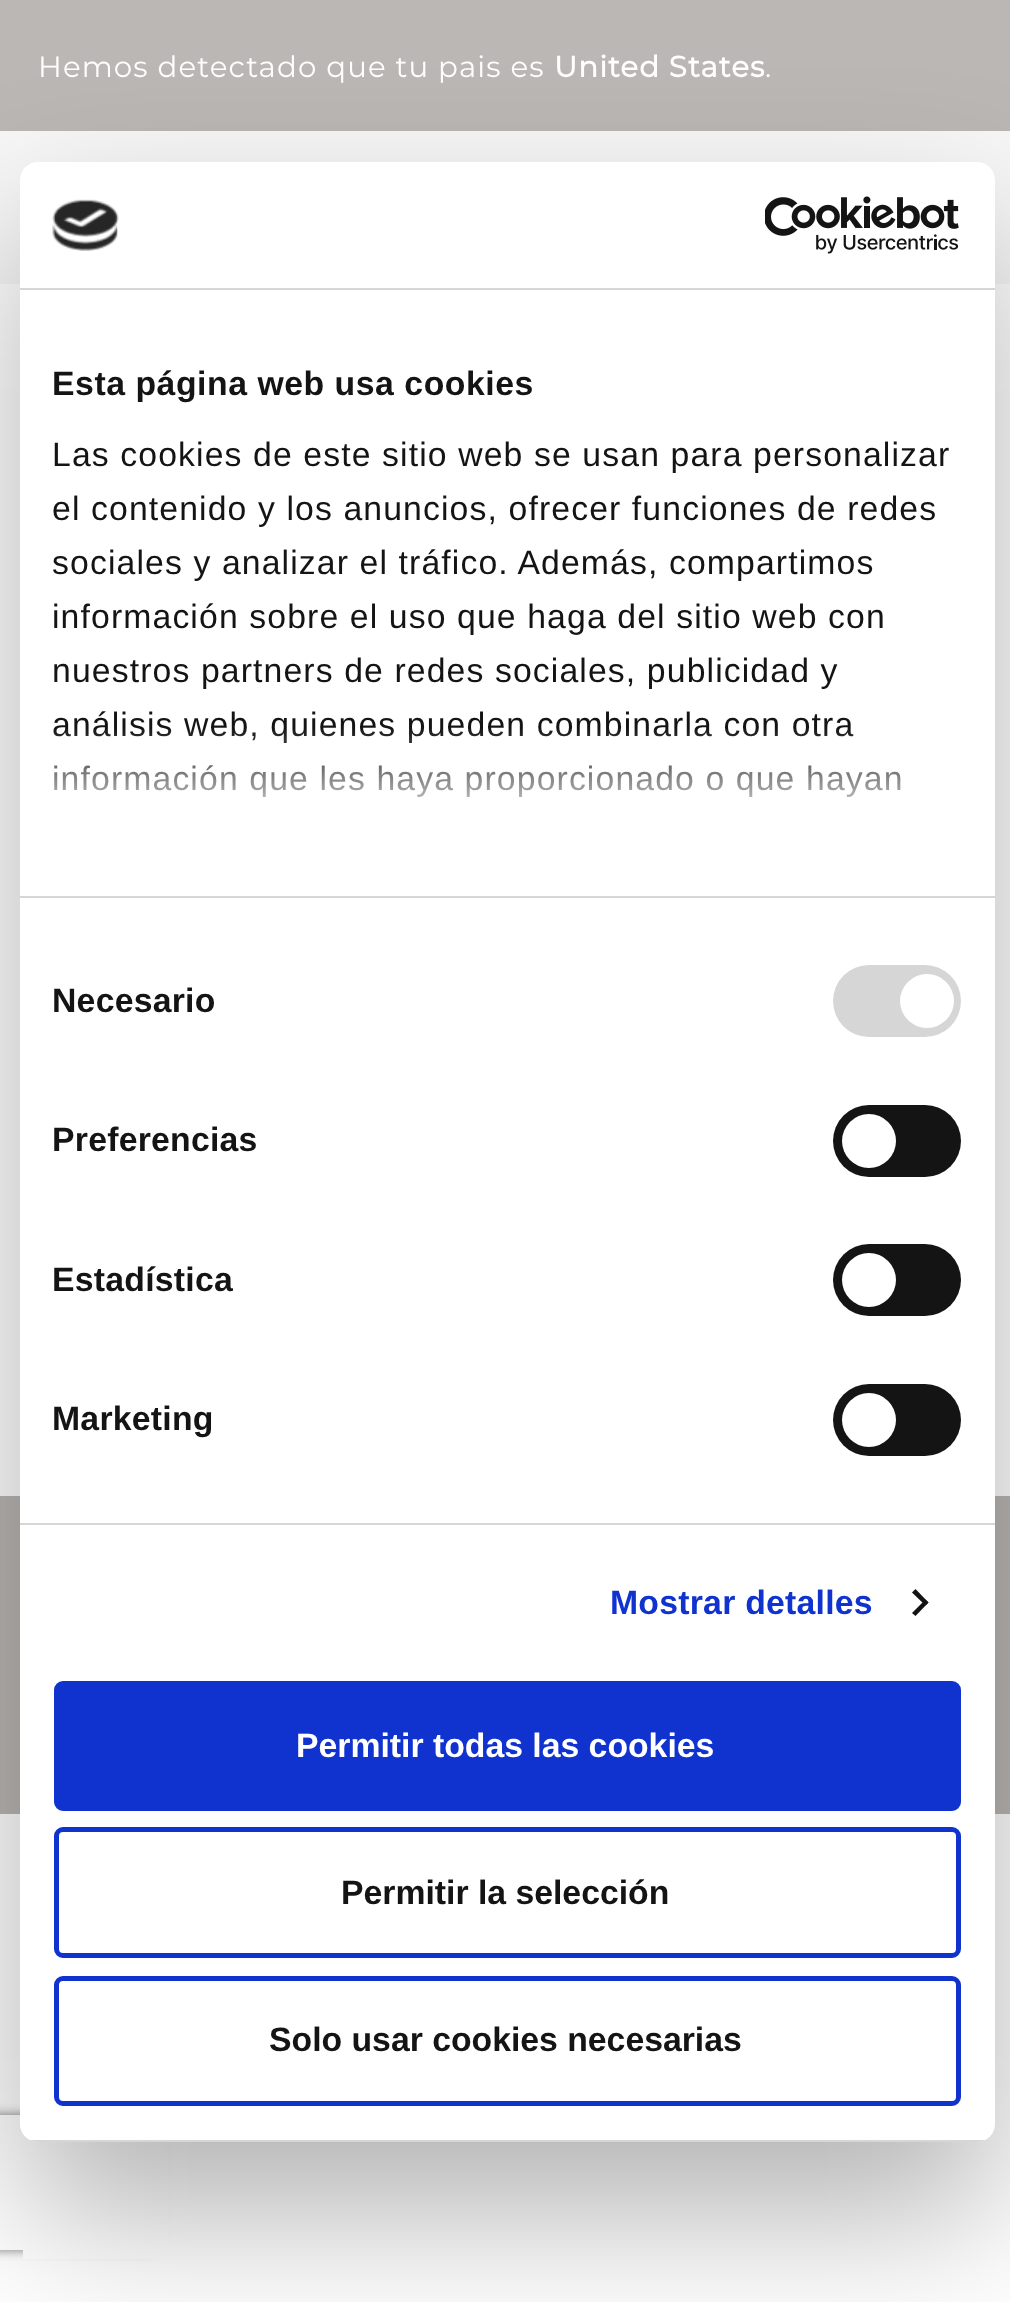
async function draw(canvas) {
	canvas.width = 1010;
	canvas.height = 2302;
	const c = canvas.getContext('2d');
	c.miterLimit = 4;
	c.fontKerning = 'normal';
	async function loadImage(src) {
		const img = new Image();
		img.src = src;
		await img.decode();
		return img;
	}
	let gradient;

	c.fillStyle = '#fff';
	c.fillRect(0, 0, 1010, 2302);
	c.fillStyle = '#f7f7f7';
	c.fillRect(0, 131, 1010, 153);
	c.fillStyle = '#bbb7b4';
	c.fillRect(0, 0, 1010, 131);
	c.letterSpacing = '1.12px';
	c.font = '100 29.25px Montserrat';
	c.fillStyle = '#fff';
	c.fillText('Hemos detectado que tu pais es', 38, 77);
	c.font = 'bold 29.25px Montserrat';
	c.fillText('United States', 554, 77);
	c.font = '100 29.25px Montserrat';
	c.fillText('.', 765, 77);
	c.fillStyle = '#bbb7b4';
	c.fillRect(0, 1496, 1010, 318);
	c.save();
	c.beginPath();
	c.moveTo(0, 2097);
	c.lineTo(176, 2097);
	c.lineTo(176, 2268);
	c.lineTo(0, 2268);
	c.closePath();
	c.moveTo(-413, 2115);
	c.lineTo(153, 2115);
	c.bezierCurveTo(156, 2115, 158, 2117, 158, 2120);
	c.lineTo(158, 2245);
	c.bezierCurveTo(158, 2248, 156, 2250, 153, 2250);
	c.lineTo(-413, 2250);
	c.bezierCurveTo(-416, 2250, -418, 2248, -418, 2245);
	c.lineTo(-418, 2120);
	c.bezierCurveTo(-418, 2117, -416, 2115, -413, 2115);
	c.closePath();
	c.clip('evenodd');
	c.fillStyle = '#808080';
	c.filter = 'blur(5.5px)';
	c.beginPath();
	c.roundRect(-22, 2115, 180, 135, 5);
	c.fill();
	c.filter = 'none';
	c.restore();
	c.fillStyle = '#fff';
	c.fillRect(23, 2134, 146, 125);
	c.fillStyle = '#0000004d';
	c.filter = 'blur(76.5px)';
	c.beginPath();
	c.roundRect(20, 234, 975, 1980, 18);
	c.fill();
	c.filter = 'none';
	c.fillStyle = '#fff';
	c.beginPath();
	c.roundRect(20, 162, 975, 1980, 18);
	c.fill();
	c.fillStyle = '#d6d6d6';
	c.fillRect(20, 288, 975, 2);
	c.drawImage(await loadImage('img1.png'), 52, 199, 67, 52);
	c.drawImage(await loadImage('img2.png'), 765, 196, 194, 58);
	c.fillRect(20, 896, 975, 2);
	c.letterSpacing = '0.55px';
	c.font = 'bold 33.75px Liberation Sans';
	c.fillStyle = '#141414';
	c.fillText('Esta página web usa cookies', 52, 395);
	c.letterSpacing = '1.12px';
	c.font = '33.75px Liberation Sans';
	for (const [text, x, y] of [
		['Las cookies de este sitio web se usan para personalizar', 52, 466],
		['el contenido y los anuncios, ofrecer funciones de redes', 52, 520],
		['sociales y analizar el tráfico. Además, compartimos', 52, 574],
		['información sobre el uso que haga del sitio web con', 52, 628],
		['nuestros partners de redes sociales, publicidad y', 52, 682],
		['análisis web, quienes pueden combinarla con otra', 52, 736],
		['información que les haya proporcionado o que hayan', 52, 790],
	]) {
		c.fillText(text, x, y);
	}
	gradient = c.createLinearGradient(492, 896, 492, 727);
	gradient.addColorStop(0, '#fff');
	gradient.addColorStop(0.5, '#ffffffcc');
	gradient.addColorStop(1, '#ffffff00');
	c.fillStyle = gradient;
	c.fillRect(53, 729, 848, 68);
	c.fillStyle = '#d6d6d6';
	c.fillRect(20, 1523, 975, 2);
	c.letterSpacing = '0.25px';
	c.font = 'bold 33.75px Liberation Sans';
	c.fillStyle = '#141414';
	c.fillText('Necesario', 52, 1012);
	c.fillStyle = '#d6d6d6';
	c.beginPath();
	c.roundRect(833, 965, 128, 72, 36);
	c.fill();
	c.fillStyle = '#fff';
	c.beginPath();
	c.arc(927, 1001, 27, 0, 2 * Math.PI);
	c.fill();
	c.fillStyle = '#141414';
	c.fillText('Preferencias', 52, 1151);
	c.beginPath();
	c.roundRect(833, 1105, 128, 72, 36);
	c.fill();
	c.fillStyle = '#fff';
	c.beginPath();
	c.arc(869, 1141, 27, 0, 2 * Math.PI);
	c.fill();
	c.fillStyle = '#141414';
	c.fillText('Estadística', 52, 1291);
	c.beginPath();
	c.roundRect(833, 1244, 128, 72, 36);
	c.fill();
	c.fillStyle = '#fff';
	c.beginPath();
	c.arc(869, 1280, 27, 0, 2 * Math.PI);
	c.fill();
	c.fillStyle = '#141414';
	c.fillText('Marketing', 52, 1430);
	c.beginPath();
	c.roundRect(833, 1384, 128, 72, 36);
	c.fill();
	c.fillStyle = '#fff';
	c.beginPath();
	c.arc(869, 1420, 27, 0, 2 * Math.PI);
	c.fill();
	c.fillStyle = '#1032cf';
	c.fillText('Mostrar detalles', 610, 1614);
	c.fillStyle = '#141414';
	c.beginPath();
	c.moveTo(915.5, 1589);
	c.lineTo(928.5, 1602.5);
	c.lineTo(925.5, 1605.5);
	c.lineTo(912, 1592.5);
	c.closePath();
	c.fill();
	c.beginPath();
	c.moveTo(925.5, 1599.5);
	c.lineTo(928.5, 1602.5);
	c.lineTo(915.5, 1616);
	c.lineTo(912, 1613);
	c.closePath();
	c.fill();
	c.save();
	c.beginPath();
	c.roundRect(20, 162, 975, 1980, 18);
	c.clip();
	c.fillStyle = '#d6d6d6';
	c.fillRect(30, 2140, 955, 2);
	c.restore();
	c.fillStyle = '#1032cf';
	c.beginPath();
	c.roundRect(56.5, 1683.5, 902, 125, 6.5);
	c.fill();
	c.strokeStyle = '#1032cf';
	c.lineWidth = 5;
	c.stroke();
	c.letterSpacing = '0px';
	c.fillStyle = '#fff';
	c.fillText('Permitir todas las cookies', 296, 1757);
	c.beginPath();
	c.roundRect(56.5, 1829.5, 902, 126, 6.5);
	c.stroke();
	c.fillStyle = '#141414';
	c.fillText('Permitir la selección', 341, 1904);
	c.beginPath();
	c.roundRect(56.5, 1978.5, 902, 125, 6.5);
	c.stroke();
	c.fillText('Solo usar cookies necesarias', 269, 2051);
}

draw(document.querySelector('canvas'));
